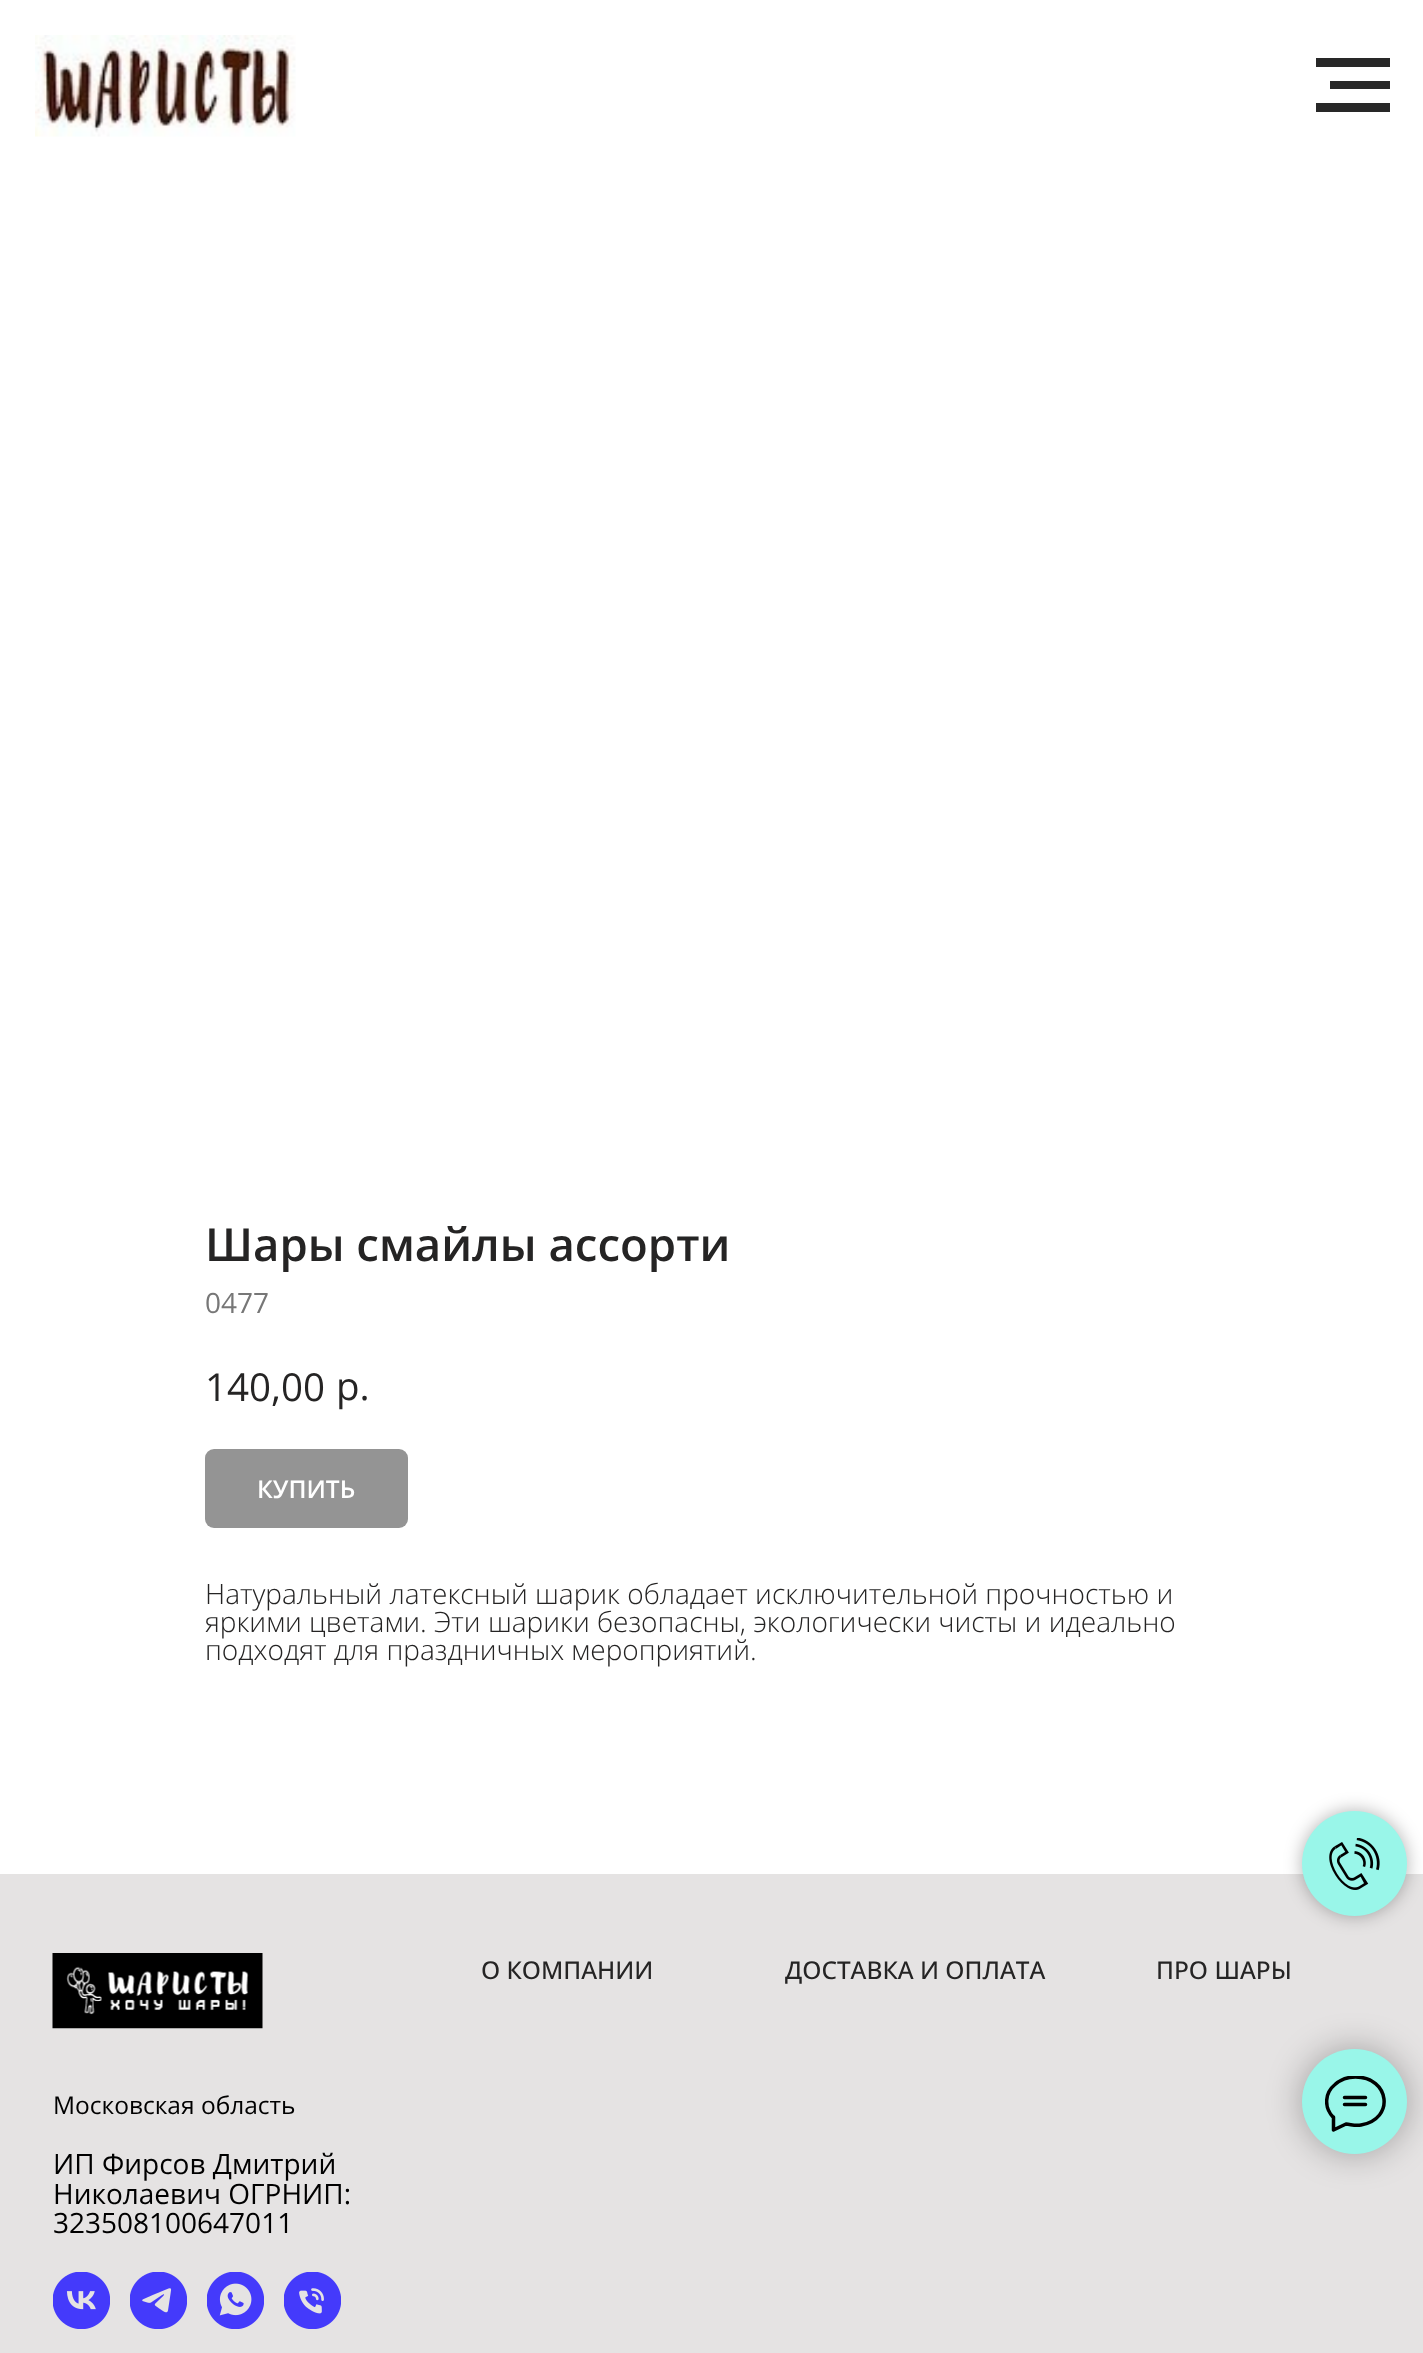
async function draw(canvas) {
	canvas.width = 1423;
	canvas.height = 2353;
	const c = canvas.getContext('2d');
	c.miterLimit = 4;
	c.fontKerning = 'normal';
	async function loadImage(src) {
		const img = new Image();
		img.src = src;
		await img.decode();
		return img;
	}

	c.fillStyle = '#fff';
	c.fillRect(0, 0, 1423, 2353);
	c.drawImage(await loadImage('img1.png'), 35, 35, 261, 102);
	for (const [x, y, w, h, color] of [
		[1316, 58, 74, 9, '#282828'],
		[1330, 81, 60, 8, '#282828'],
		[1316, 103, 74, 9, '#282828'],
		[0, 1874, 1423, 479, '#e5e3e3'],
	]) {
		c.fillStyle = color;
		c.fillRect(x, y, w, h);
	}
	c.fillStyle = '#0000004d';
	c.filter = 'blur(9px)';
	c.beginPath();
	c.roundRect(1302, 1811, 105, 105, 52.5);
	c.fill();
	c.filter = 'none';
	c.fillStyle = '#99f6e9';
	c.beginPath();
	c.arc(1354.5, 1863.5, 52.5, 0, 2 * Math.PI);
	c.fill();
	c.drawImage(await loadImage('img2.png'), 1329, 1838, 51, 52);
	c.fillStyle = '#0000004d';
	c.filter = 'blur(17.5px)';
	c.beginPath();
	c.roundRect(1302, 2049, 105, 105, 52.5);
	c.fill();
	c.filter = 'none';
	c.fillStyle = '#99f6e9';
	c.beginPath();
	c.arc(1354.5, 2101.5, 52.5, 0, 2 * Math.PI);
	c.fill();
	c.save();
	c.beginPath();
	c.rect(1325, 2076, 61, 56);
	c.clip();
	c.beginPath();
	c.moveTo(1344.5, 2097.5);
	c.lineTo(1365.5, 2097.5);
	c.moveTo(1344.5, 2104.5);
	c.lineTo(1365.5, 2104.5);
	c.moveTo(1333, 2117);
	c.bezierCurveTo(1324, 2107.5, 1324.5, 2093, 1335, 2084.5);
	c.bezierCurveTo(1340.5, 2079.5, 1348, 2077, 1355.5, 2077);
	c.bezierCurveTo(1389.5, 2077, 1395.5, 2119, 1361, 2125);
	c.bezierCurveTo(1355, 2126, 1351.5, 2124.5, 1346, 2124);
	c.lineTo(1333.5, 2130);
	c.lineTo(1333.5, 2117);
	c.closePath();
	c.strokeStyle = '#000';
	c.lineWidth = 3.5;
	c.lineCap = 'round';
	c.lineJoin = 'round';
	c.stroke();
	c.restore();
	c.font = '600 45.5px Open Sans';
	c.fillStyle = '#252424';
	c.fillText('Шары смайлы ассорти', 205, 1261);
	c.font = '28px Open Sans';
	c.fillStyle = '#777';
	c.fillText('0477', 205, 1313);
	c.font = '38.5px Open Sans';
	c.fillStyle = '#252424';
	c.fillText('140,00', 205, 1401);
	c.fillText('р.', 336, 1400);
	c.fillStyle = '#949494';
	c.beginPath();
	c.roundRect(205, 1449, 203, 79, 9);
	c.fill();
	c.font = '600 24.5px Open Sans';
	c.fillStyle = '#fff';
	c.fillText('КУПИТЬ', 257, 1498);
	c.font = '300 28px Open Sans';
	c.fillStyle = '#252424';
	for (const [text, x, y] of [
		['Натуральный латексный шарик обладает исключительной прочностью и', 205, 1604],
		['яркими цветами. Эти шарики безопасны, экологически чисты и идеально', 205, 1632],
		['подходят для праздничных мероприятий.', 205, 1660],
	]) {
		c.fillText(text, x, y);
	}
	c.font = '500 24.5px Open Sans';
	for (const [text, x, y] of [
		['О КОМПАНИИ', 481, 1979],
		['ДОСТАВКА И ОПЛАТА', 785, 1979],
		['ПРО ШАРЫ', 1156, 1979],
	]) {
		c.fillText(text, x, y);
	}
	c.drawImage(await loadImage('img3.png'), 52, 1953, 211, 76);
	c.font = '24.5px Open Sans';
	c.fillStyle = '#000';
	c.fillText('Московская область', 53, 2114);
	c.font = '28px Open Sans';
	for (const [text, x, y] of [
		['ИП Фирсов Дмитрий', 53, 2174],
		['Николаевич ОГРНИП:', 53, 2204],
		['323508100647011', 53, 2233],
	]) {
		c.fillText(text, x, y);
	}
	c.drawImage(await loadImage('img4.png'), 53, 2272, 57, 57);
	c.drawImage(await loadImage('img5.png'), 130, 2272, 57, 57);
	c.drawImage(await loadImage('img6.png'), 207, 2272, 57, 57);
	c.drawImage(await loadImage('img7.png'), 284, 2272, 57, 57);
}

draw(document.querySelector('canvas'));
